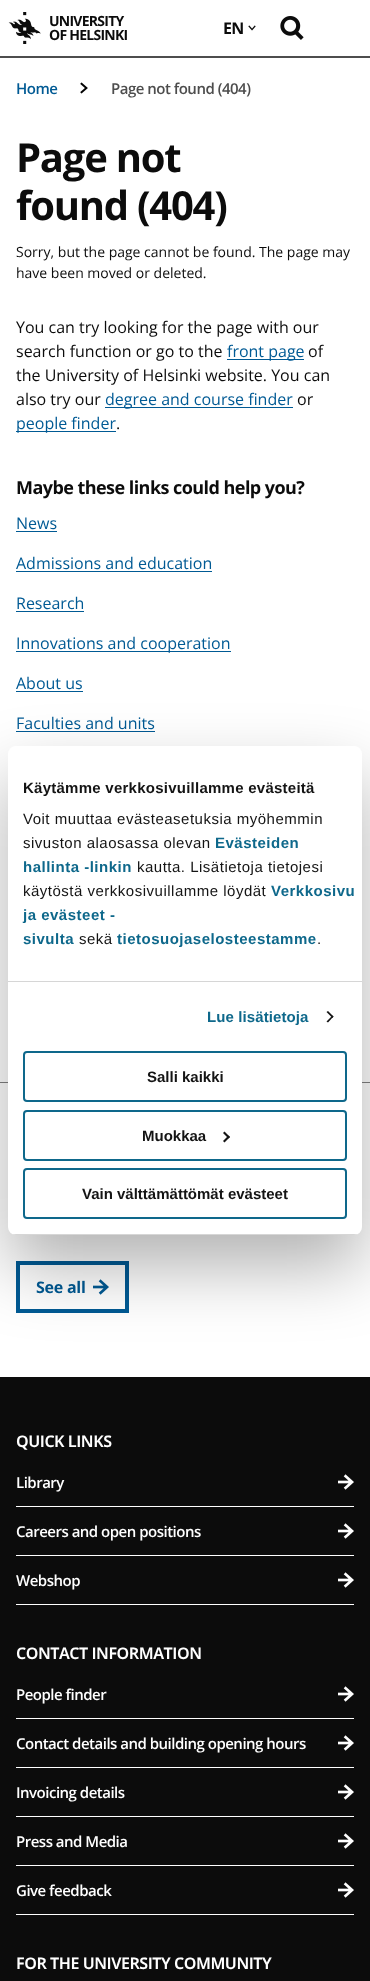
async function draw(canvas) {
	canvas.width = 370;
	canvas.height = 1981;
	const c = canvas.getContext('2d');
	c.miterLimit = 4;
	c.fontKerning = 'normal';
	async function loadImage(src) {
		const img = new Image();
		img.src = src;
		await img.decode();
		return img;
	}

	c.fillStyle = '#fff';
	c.fillRect(0, 0, 370, 1981);
	c.fillStyle = '#4d4d4d';
	c.fillRect(0, 56, 370, 2);
	c.drawImage(await loadImage('img1.png'), 8, 12, 33, 32);
	c.letterSpacing = '-0.75px';
	c.font = 'bold 14px Open Sans';
	c.fillStyle = '#0c0c0c';
	c.fillText('UNIVERSITY', 49, 26);
	c.fillText('OF HELSINKI', 49, 40);
	c.font = 'bold 16px Open Sans';
	c.fillText('EN', 223, 34);
	c.drawImage(await loadImage('img2.png'), 248, 25, 8, 6);
	c.drawImage(await loadImage('img3.png'), 280, 16, 24, 24);
	c.letterSpacing = '-0.5px';
	c.font = '600 15px Open Sans';
	c.fillStyle = '#005a94';
	c.fillText('Home', 16, 94);
	c.drawImage(await loadImage('img4.png'), 80, 82, 8, 12);
	c.fillStyle = '#4d4d4d';
	c.fillText('Page not found (404)', 111, 94);
	c.letterSpacing = '-1.25px';
	c.font = 'bold 40px Open Sans';
	c.fillStyle = '#0c0c0c';
	c.fillText('Page not', 16, 172);
	c.fillText('found (404)', 16, 220);
	c.letterSpacing = '0px';
	c.font = '14px Open Sans';
	c.fillText('Sorry, but the page cannot be found. The page may', 16, 257);
	c.fillText('have been moved or deleted.', 16, 278);
	c.font = '16px Open Sans';
	c.fillText('You can try looking for the page with our', 16, 333);
	c.fillText('search function or go to the', 16, 357);
	c.fillStyle = '#005a94';
	c.fillRect(227, 359, 77, 1);
	c.fillText('front page', 227, 357);
	c.fillStyle = '#0c0c0c';
	for (const [text, x, y] of [
		['of', 308, 357],
		['the University of Helsinki website. You can', 16, 381],
		['also try our', 16, 405],
	]) {
		c.fillText(text, x, y);
	}
	c.fillStyle = '#005a94';
	c.fillRect(105, 407, 188, 1);
	c.fillText('degree and course finder', 105, 405);
	c.fillStyle = '#0c0c0c';
	c.fillText('or', 297, 405);
	c.fillStyle = '#005a94';
	c.fillRect(16, 431, 100, 1);
	c.fillText('people finder', 16, 429);
	c.fillStyle = '#0c0c0c';
	c.fillText('.', 116, 429);
	c.letterSpacing = '-0.55px';
	c.font = 'bold 18px Open Sans';
	c.fillText('Maybe these links could help you?', 16, 494);
	c.letterSpacing = '0px';
	c.font = '16px Open Sans';
	c.fillStyle = '#005a94';
	c.fillText('News', 16, 529);
	c.fillRect(16, 531, 41, 1);
	c.fillText('Admissions and education', 16, 569);
	c.fillRect(16, 571, 196, 1);
	c.fillText('Research', 16, 609);
	c.fillRect(16, 611, 68, 1);
	c.fillRect(16, 651, 215, 1);
	c.fillText('Innovations and cooperation', 16, 649);
	c.fillText('About us', 16, 689);
	c.fillRect(16, 691, 67, 1);
	c.fillText('Faculties and units', 16, 729);
	c.fillRect(16, 731, 139, 1);
	c.fillStyle = '#808080';
	c.fillRect(0, 1082, 370, 1);
	c.strokeStyle = '#005a94';
	c.lineWidth = 4;
	c.strokeRect(18, 1263, 109, 48);
	c.letterSpacing = '-0.25px';
	c.font = 'bold 16px Open Sans';
	c.fillStyle = '#005a94';
	c.fillText('See all', 36, 1293);
	c.drawImage(await loadImage('img5.png'), 93, 1279, 16, 16);
	c.fillStyle = '#0c0c0c';
	c.fillRect(0, 1377, 370, 604);
	c.letterSpacing = '-0.45px';
	c.font = '600 16px "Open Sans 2"';
	c.fillStyle = '#fff';
	c.fillText('QUICK LINKS', 16, 1447);
	c.fillRect(16, 1506, 338, 1);
	c.letterSpacing = '-0.5px';
	c.font = '600 15px Open Sans';
	c.fillText('Library', 16, 1488);
	c.drawImage(await loadImage('img6.png'), 338, 1474, 16, 16);
	c.fillRect(16, 1555, 338, 1);
	c.fillText('Careers and open positions', 16, 1537);
	c.drawImage(await loadImage('img6.png'), 338, 1523, 16, 16);
	c.fillRect(16, 1604, 338, 1);
	c.fillText('Webshop', 16, 1586);
	c.drawImage(await loadImage('img6.png'), 338, 1572, 16, 16);
	c.letterSpacing = '-0.45px';
	c.font = '600 16px "Open Sans 2"';
	c.fillText('CONTACT INFORMATION', 16, 1659);
	c.fillRect(16, 1718, 338, 1);
	c.letterSpacing = '-0.5px';
	c.font = '600 15px Open Sans';
	c.fillText('People finder', 16, 1700);
	c.drawImage(await loadImage('img6.png'), 338, 1686, 16, 16);
	c.fillRect(16, 1767, 338, 1);
	c.fillText('Contact details and building opening hours', 16, 1749);
	c.drawImage(await loadImage('img6.png'), 338, 1735, 16, 16);
	c.fillRect(16, 1816, 338, 1);
	c.fillText('Invoicing details', 16, 1798);
	c.drawImage(await loadImage('img6.png'), 338, 1784, 16, 16);
	c.fillRect(16, 1865, 338, 1);
	c.fillText('Press and Media', 16, 1847);
	c.drawImage(await loadImage('img6.png'), 338, 1833, 16, 16);
	c.fillRect(16, 1914, 338, 1);
	c.fillText('Give feedback', 16, 1896);
	c.drawImage(await loadImage('img6.png'), 338, 1882, 16, 16);
	c.letterSpacing = '-0.45px';
	c.font = '600 16px "Open Sans 2"';
	c.fillText('FOR THE UNIVERSITY COMMUNITY', 16, 1969);
	c.fillStyle = '#0000004d';
	c.filter = 'blur(34px)';
	c.beginPath();
	c.roundRect(8, 778, 354, 489, 8);
	c.fill();
	c.filter = 'none';
	c.fillStyle = '#fff';
	c.beginPath();
	c.roundRect(8, 746, 354, 489, 8);
	c.fill();
	c.fillStyle = '#d6d6d6';
	c.fillRect(8, 981, 354, 1);
	c.letterSpacing = '0.25px';
	c.font = 'bold 15px Liberation Sans';
	c.fillStyle = '#141414';
	c.fillText('Käytämme verkkosivuillamme evästeitä', 23, 793);
	c.letterSpacing = '0.5px';
	c.font = '15px Liberation Sans';
	c.fillText('Voit muuttaa evästeasetuksia myöhemmin', 23, 824);
	c.fillText('sivuston alaosassa olevan', 23, 848);
	c.font = 'bold 15px Liberation Sans';
	c.fillStyle = '#0e688b';
	c.fillText('Evästeiden', 215, 848);
	c.fillText('hallinta -linkin', 23, 872);
	c.font = '15px Liberation Sans';
	c.fillStyle = '#141414';
	c.fillText('kautta. Lisätietoja tietojesi', 137, 872);
	c.fillText('käytöstä verkkosivuillamme löydät', 23, 896);
	c.font = 'bold 15px Liberation Sans';
	c.fillStyle = '#0e688b';
	for (const [text, x, y] of [
		['Verkkosivu', 271, 896],
		['ja evästeet -', 23, 920],
		['sivulta', 23, 944],
	]) {
		c.fillText(text, x, y);
	}
	c.font = '15px Liberation Sans';
	c.fillStyle = '#141414';
	c.fillText('sekä', 79, 944);
	c.font = 'bold 15px Liberation Sans';
	c.fillStyle = '#0e688b';
	c.fillText('tietosuojaselosteestamme', 117, 944);
	c.font = '15px Liberation Sans';
	c.fillStyle = '#141414';
	c.fillText('.', 317, 944);
	c.letterSpacing = '0.1px';
	c.font = 'bold 15px Liberation Sans';
	c.fillStyle = '#0e688b';
	c.fillText('Lue lisätietoja', 207, 1022);
	c.fillStyle = '#141414';
	c.beginPath();
	c.moveTo(328, 1011);
	c.lineTo(333.5, 1016.5);
	c.lineTo(332.5, 1018);
	c.lineTo(326.5, 1012);
	c.closePath();
	c.fill();
	c.beginPath();
	c.moveTo(332.5, 1015.5);
	c.lineTo(333.5, 1016.5);
	c.lineTo(328, 1022.5);
	c.lineTo(326.5, 1021.5);
	c.closePath();
	c.fill();
	c.save();
	c.beginPath();
	c.roundRect(8, 746, 354, 489, 8);
	c.clip();
	c.fillStyle = '#d6d6d6';
	c.fillRect(8, 1234, 354, 1);
	c.restore();
	c.beginPath();
	c.roundRect(24, 1052, 322, 49, 3);
	c.strokeStyle = '#0e688b';
	c.lineWidth = 2;
	c.stroke();
	c.letterSpacing = '0px';
	c.fillText('Salli kaikki', 147, 1082);
	c.beginPath();
	c.roundRect(24, 1111, 322, 49, 3);
	c.stroke();
	c.fillText('Muokkaa', 142, 1141);
	c.beginPath();
	c.moveTo(224.5, 1131.5);
	c.lineTo(230, 1137);
	c.lineTo(228.5, 1138.5);
	c.lineTo(223, 1133);
	c.closePath();
	c.fill();
	c.beginPath();
	c.moveTo(228.5, 1135.5);
	c.lineTo(230, 1137);
	c.lineTo(224.5, 1142.5);
	c.lineTo(223, 1141);
	c.closePath();
	c.fill();
	c.beginPath();
	c.roundRect(24, 1169, 322, 49, 3);
	c.stroke();
	c.fillText('Vain välttämättömät evästeet', 82, 1199);
}

draw(document.querySelector('canvas'));
